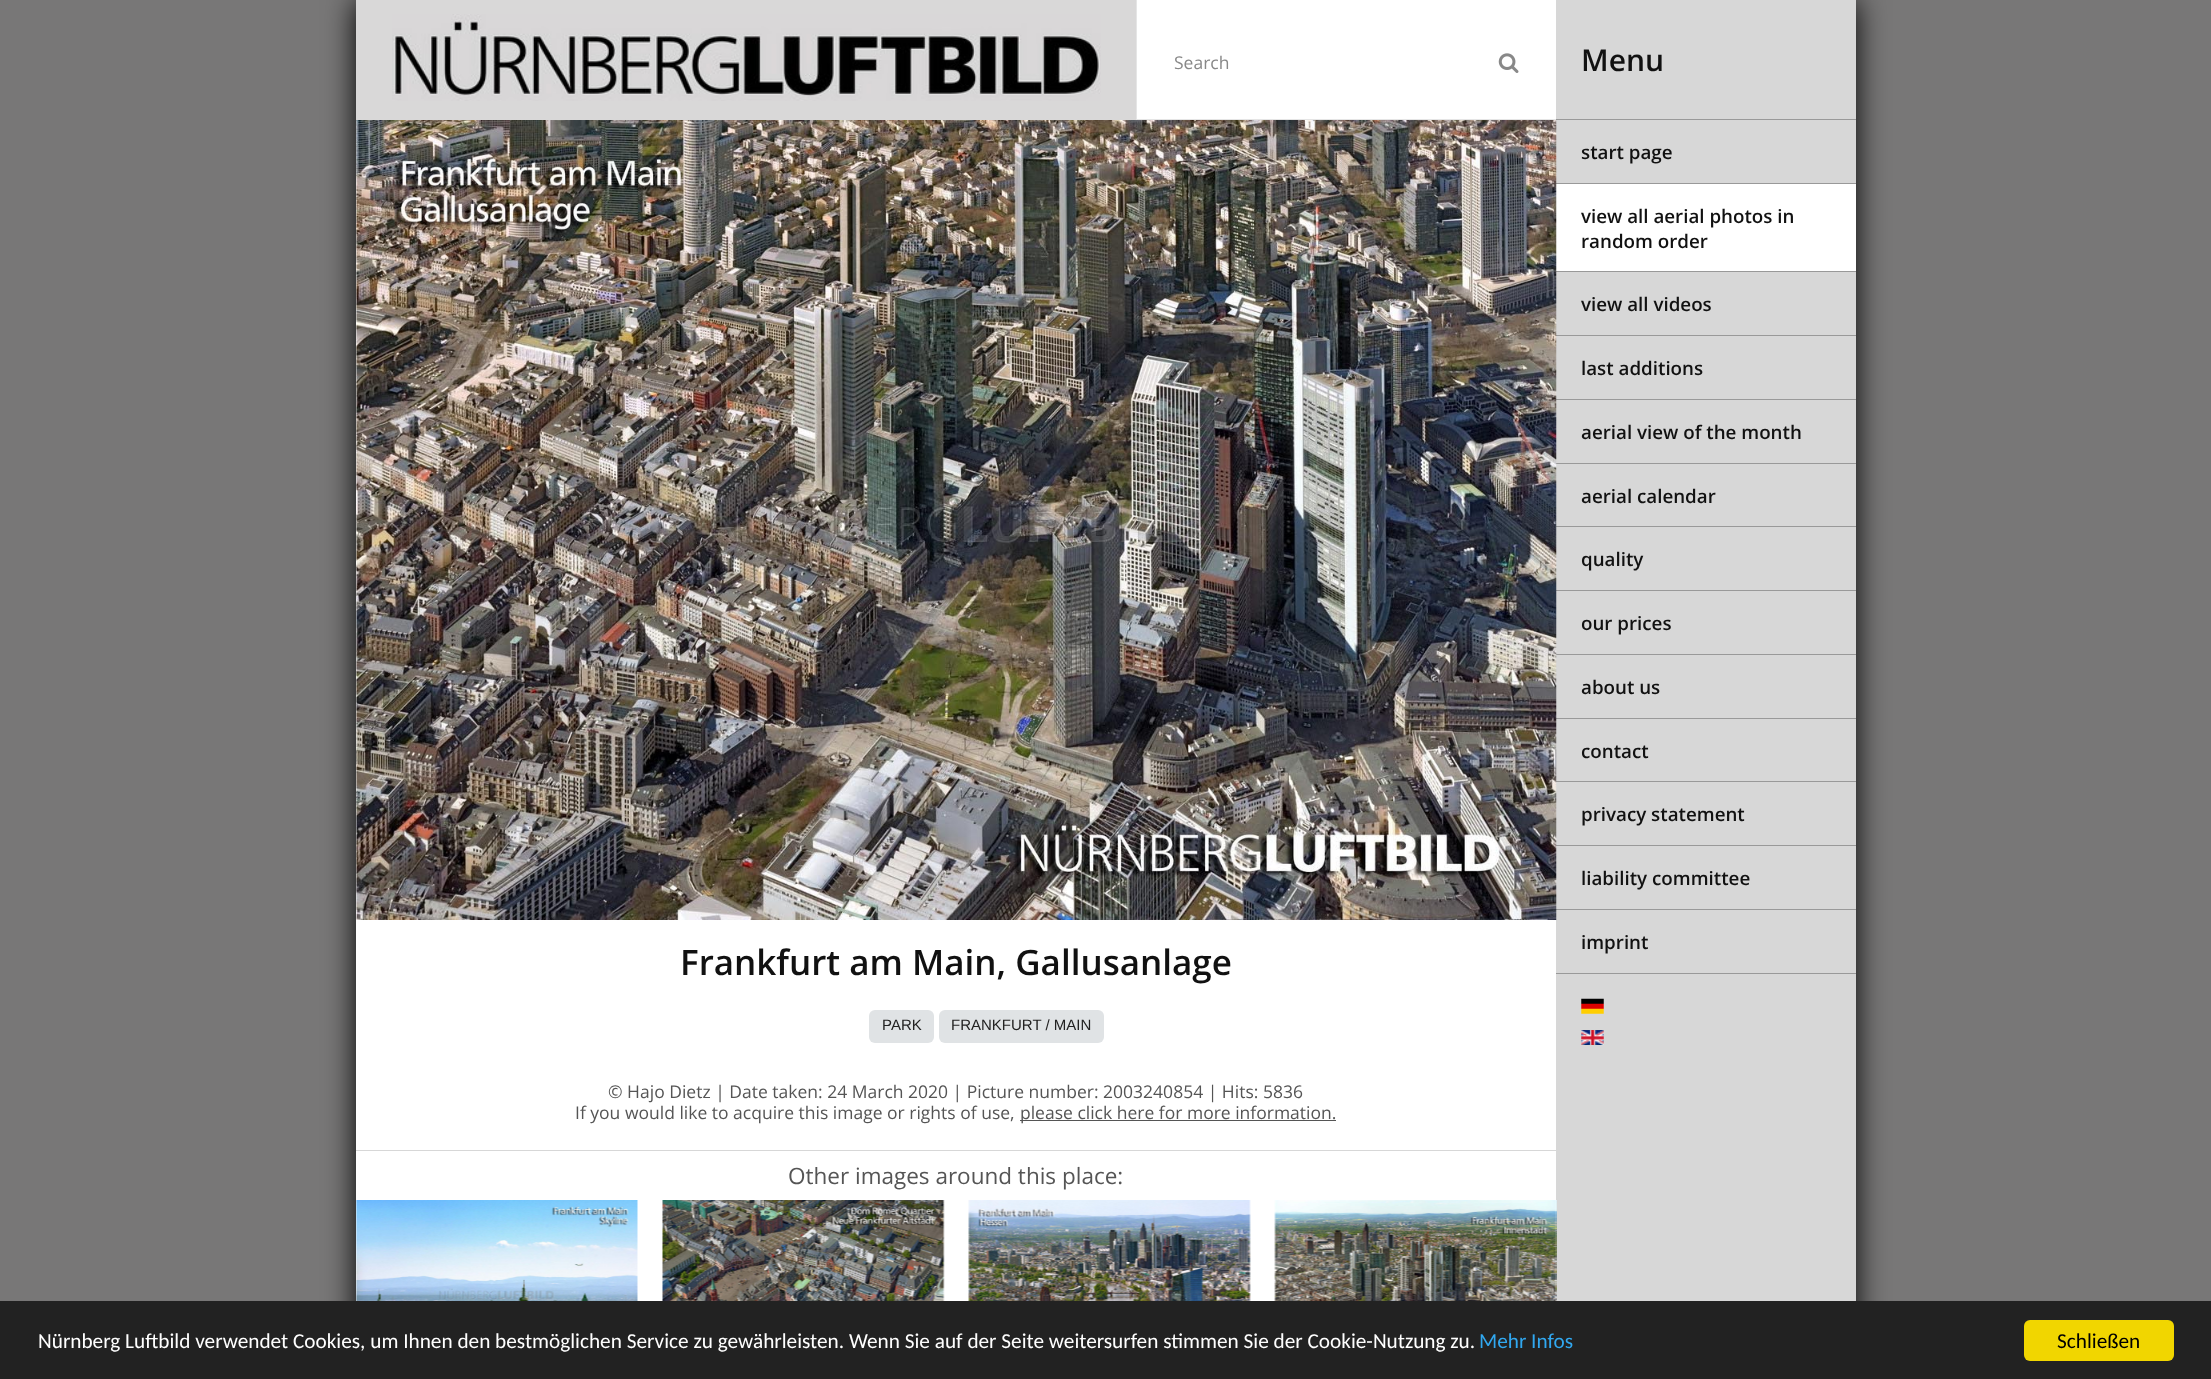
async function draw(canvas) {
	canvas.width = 2211;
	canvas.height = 1379;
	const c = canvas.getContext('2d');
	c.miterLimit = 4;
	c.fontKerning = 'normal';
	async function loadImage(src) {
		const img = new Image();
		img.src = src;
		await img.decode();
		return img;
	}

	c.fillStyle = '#787777';
	c.fillRect(0, 0, 2211, 1379);
	c.fillStyle = '#000';
	c.filter = 'blur(15.5px)';
	c.beginPath();
	c.rect(356, 0, 1500, 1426);
	c.fill();
	c.filter = 'none';
	for (const [x, y, w, h, color] of [
		[1556, 0, 300, 1301, '#d7d7d7'],
		[356, 0, 1200, 1301, '#fff'],
		[356, 0, 780, 120, '#d9d8d8'],
	]) {
		c.fillStyle = color;
		c.fillRect(x, y, w, h);
	}
	c.drawImage(await loadImage('img1.png'), 392, 14, 709, 87);
	c.fillStyle = '#e5e5e5';
	c.fillRect(1136, 119, 420, 1);
	c.fillRect(1136, 0, 1, 120);
	c.font = '17.5px Open Sans';
	c.fillStyle = '#888';
	c.fillText('Search', 1174, 69);
	c.drawImage(await loadImage('img2.png'), 1498, 53, 21, 20);
	for (const [x, y, w, h, color] of [
		[1556, 183, 300, 1, '#999'],
		[1556, 271, 300, 1, '#999'],
		[1556, 184, 300, 87, '#fff'],
		[1556, 335, 300, 1, '#999'],
		[1556, 399, 300, 1, '#999'],
		[1556, 463, 300, 1, '#999'],
		[1556, 526, 300, 1, '#999'],
		[1556, 590, 300, 1, '#999'],
		[1556, 654, 300, 1, '#999'],
		[1556, 718, 300, 1, '#999'],
		[1556, 781, 300, 1, '#999'],
		[1556, 845, 300, 1, '#999'],
		[1556, 909, 300, 1, '#999'],
	]) {
		c.fillStyle = color;
		c.fillRect(x, y, w, h);
	}
	c.drawImage(await loadImage('img3.png'), 356, 120, 1201, 800);
	c.font = '600 35px Open Sans';
	c.fillStyle = '#111';
	c.fillText('Frankfurt am Main, Gallusanlage', 680, 975);
	c.fillStyle = '#e0e3e5';
	c.beginPath();
	c.roundRect(869, 1010, 65, 33, 6);
	c.fill();
	c.font = '15px Liberation Sans';
	c.fillStyle = '#222';
	c.fillText('PARK', 882, 1030);
	c.fillStyle = '#e0e3e5';
	c.beginPath();
	c.roundRect(939, 1010, 165, 33, 6);
	c.fill();
	c.fillStyle = '#222';
	c.fillText('FRANKFURT / MAIN', 951, 1030);
	c.font = '17.5px Open Sans';
	c.fillStyle = '#555';
	c.fillText('© Hajo Dietz | Date taken: 24 March 2020 | Picture number: 2003240854 | Hits: 5836', 608, 1098);
	c.fillText('If you would like to acquire this image or rights of use,', 575, 1119);
	c.fillRect(1020, 1120, 316, 1);
	c.fillText('please click here for more information.', 1020, 1119);
	c.fillStyle = '#d7d7d7';
	c.fillRect(356, 1150, 1200, 1);
	c.font = '22.5px Open Sans';
	c.fillStyle = '#555';
	c.fillText('Other images around this place:', 788, 1184);
	c.drawImage(await loadImage('img4.png'), 356, 1200, 282, 101);
	c.drawImage(await loadImage('img5.png'), 662, 1200, 283, 101);
	c.drawImage(await loadImage('img6.png'), 968, 1200, 283, 101);
	c.drawImage(await loadImage('img7.png'), 1274, 1200, 283, 101);
	c.fillStyle = '#999';
	c.fillRect(1556, 119, 300, 1);
	c.font = '600 30px Open Sans';
	c.fillStyle = '#111';
	c.fillText('Menu', 1581, 71);
	c.font = '600 18.75px Open Sans';
	for (const [text, x, y] of [
		['start page', 1581, 159],
		['view all aerial photos in', 1581, 223],
		['random order', 1581, 248],
		['view all videos', 1581, 311],
		['last additions', 1581, 375],
		['aerial view of the month', 1581, 439],
		['aerial calendar', 1581, 503],
		['quality', 1581, 566],
		['our prices', 1581, 630],
		['about us', 1581, 694],
		['contact', 1581, 758],
		['privacy statement', 1581, 821],
		['liability committee', 1581, 885],
	]) {
		c.fillText(text, x, y);
	}
	c.fillStyle = '#999';
	c.fillRect(1556, 973, 300, 1);
	c.fillStyle = '#111';
	c.fillText('imprint', 1581, 949);
	c.drawImage(await loadImage('img8.png'), 1581, 998, 23, 16);
	c.drawImage(await loadImage('img9.png'), 1581, 1030, 23, 15);
	c.fillStyle = '#222';
	c.fillRect(0, 1301, 2211, 78);
	c.font = '21.25px Carlito';
	c.fillStyle = '#fff';
	c.fillText('Nürnberg Luftbild verwendet Cookies, um Ihnen den bestmöglichen Service zu gewährleisten. Wenn Sie auf der Seite weitersurfen stimmen Sie der Cookie-Nutzung zu.', 38, 1348);
	c.fillStyle = '#31a8f0';
	c.fillText('Mehr Infos', 1479, 1348);
	c.fillStyle = '#f1d600';
	c.beginPath();
	c.roundRect(2024, 1320, 150, 41, 6);
	c.fill();
	c.fillStyle = '#000';
	c.fillText('Schließen', 2057, 1348);
}

draw(document.querySelector('canvas'));
